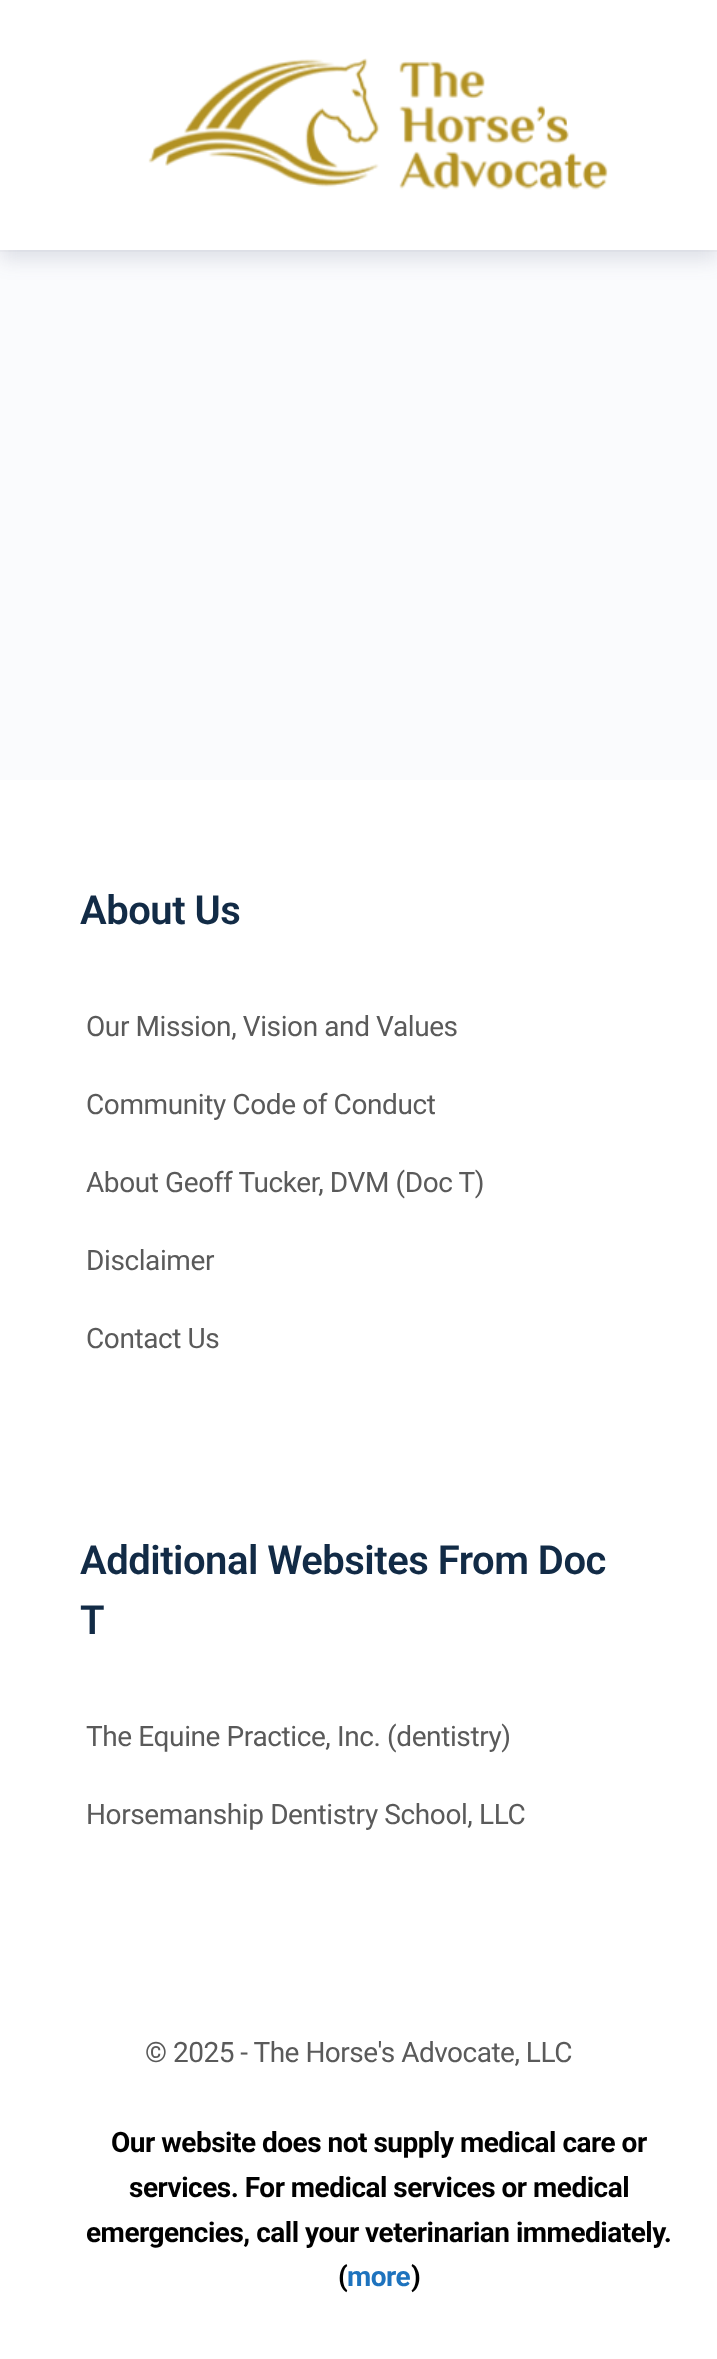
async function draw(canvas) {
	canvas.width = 717;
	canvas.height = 2359;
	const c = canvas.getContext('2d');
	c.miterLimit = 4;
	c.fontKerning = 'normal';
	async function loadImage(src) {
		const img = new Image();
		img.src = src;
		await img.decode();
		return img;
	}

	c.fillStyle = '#fafbfd';
	c.fillRect(0, 0, 717, 2359);
	c.fillStyle = '#41476c26';
	c.filter = 'blur(10px)';
	c.beginPath();
	c.rect(0, 10, 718, 250);
	c.fill();
	c.filter = 'none';
	c.fillStyle = '#8b8d9d0d';
	c.fillRect(0, 250, 717, 2);
	c.fillStyle = '#fff';
	c.fillRect(0, 0, 717, 250);
	c.drawImage(await loadImage('img1.png'), 148, 58, 460, 132);
	c.fillRect(0, 780, 717, 1579);
	c.letterSpacing = '-0.5px';
	c.font = '600 40px Roboto';
	c.fillStyle = '#122b46';
	c.fillText('About Us', 80, 924);
	c.letterSpacing = '-0.4px';
	c.font = '28px Roboto';
	c.fillStyle = '#5a5a5a';
	for (const [text, x, y] of [
		['Our Mission, Vision and Values', 86, 1036],
		['Community Code of Conduct', 86, 1114],
		['About Geoff Tucker, DVM (Doc T)', 86, 1192],
		['Disclaimer', 86, 1270],
		['Contact Us', 86, 1348],
	]) {
		c.fillText(text, x, y);
	}
	c.letterSpacing = '-0.5px';
	c.font = '600 40px Roboto';
	c.fillStyle = '#122b46';
	c.fillText('Additional Websites From Doc', 80, 1574);
	c.fillText('T', 80, 1634);
	c.letterSpacing = '-0.4px';
	c.font = '28px Roboto';
	c.fillStyle = '#5a5a5a';
	c.fillText('The Equine Practice, Inc. (dentistry)', 86, 1746);
	c.fillText('Horsemanship Dentistry School, LLC', 86, 1824);
	c.letterSpacing = '-0.5px';
	c.fillText('© 2025 - The Horse\'s Advocate, LLC', 145, 2062);
	c.font = 'bold 28px Roboto';
	c.fillStyle = '#000';
	for (const [text, x, y] of [
		['Our website does not supply medical care or', 111, 2152],
		['services. For medical services or medical', 129, 2197],
		['emergencies, call your veterinarian immediately.', 86, 2242],
		['(', 338, 2286],
	]) {
		c.fillText(text, x, y);
	}
	c.fillStyle = '#1e73be';
	c.fillText('more', 347, 2286);
	c.fillStyle = '#000';
	c.fillText(')', 411, 2286);
}

draw(document.querySelector('canvas'));
